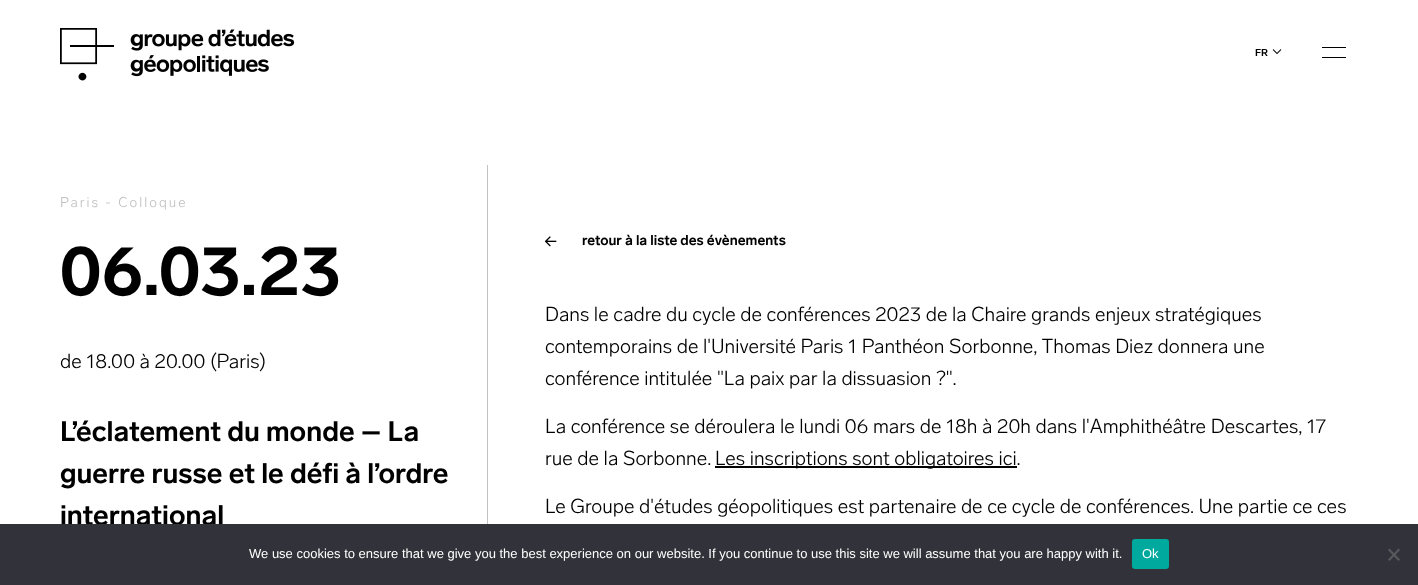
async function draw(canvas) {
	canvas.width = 1418;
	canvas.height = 585;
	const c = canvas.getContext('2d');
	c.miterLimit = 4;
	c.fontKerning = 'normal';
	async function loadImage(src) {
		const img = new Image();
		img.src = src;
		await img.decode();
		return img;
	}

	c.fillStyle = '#fff';
	c.fillRect(0, 0, 1418, 585);
	c.drawImage(await loadImage('img1.png'), 60, 28, 235, 53);
	c.font = 'bold 10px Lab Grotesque';
	c.fillStyle = '#000';
	c.fillText('FR', 1255, 56);
	c.drawImage(await loadImage('img2.png'), 1272, 49, 10, 5);
	c.beginPath();
	c.moveTo(1322, 47);
	c.lineTo(1346, 47);
	c.lineTo(1346, 48);
	c.lineTo(1322, 48);
	c.closePath();
	c.moveTo(1322, 57);
	c.lineTo(1346, 57);
	c.lineTo(1346, 58);
	c.lineTo(1322, 58);
	c.closePath();
	c.fill();
	c.fillStyle = '#c2c2c2';
	c.fillRect(487, 165, 1, 359);
	c.letterSpacing = '2px';
	c.font = '300 14px Lab Grotesque';
	c.fillText('Paris - Colloque', 60, 207);
	c.letterSpacing = '0px';
	c.font = 'bold 28px Lab Grotesque';
	c.fillStyle = '#000';
	for (const [text, x, y] of [
		['L’éclatement du monde – La', 60, 441],
		['guerre russe et le défi à l’ordre', 60, 483],
		['international', 60, 525],
	]) {
		c.fillText(text, x, y);
	}
	c.font = 'bold 70px Lab Grotesque';
	c.fillText('06.03.23', 60, 295);
	c.font = '300 20px Lab Grotesque';
	c.fillText('de 18.00 à 20.00 (Paris)', 60, 368);
	c.drawImage(await loadImage('img3.png'), 545, 236, 12, 11);
	c.font = 'bold 14px Lab Grotesque';
	c.fillText('retour à la liste des évènements', 582, 245);
	c.font = '300 20px Lab Grotesque';
	for (const [text, x, y] of [
		['Dans le cadre du cycle de conférences 2023 de la Chaire grands enjeux stratégiques', 545, 321],
		['contemporains de l\'Université Paris 1 Panthéon Sorbonne, Thomas Diez donnera une', 545, 353],
		['conférence intitulée "La paix par la dissuasion ?".', 545, 385],
		['La conférence se déroulera le lundi 06 mars de 18h à 20h dans l\'Amphithéâtre Descartes, 17', 545, 433],
		['rue de la Sorbonne.', 545, 465],
	]) {
		c.fillText(text, x, y);
	}
	c.fillRect(715, 466, 302, 2);
	c.fillText('Les inscriptions sont obligatoires ici.', 715, 465);
	c.fillText('Le Groupe d\'études géopolitiques est partenaire de ce cycle de conférences. Une partie ce ces', 545, 513);
	c.fillStyle = '#32323a';
	c.fillRect(0, 524, 1418, 61);
	c.font = '13px Liberation Sans';
	c.fillStyle = '#fff';
	c.fillText('We use cookies to ensure that we give you the best experience on our website. If you continue to use this site we will assume that you are happy with it.', 249, 558);
	c.fillStyle = '#00a99d';
	c.beginPath();
	c.roundRect(1132, 539, 37, 30, 3);
	c.fill();
	c.fillStyle = '#fff';
	c.fillText('Ok', 1142, 558);
	c.fillStyle = '#59595d';
	c.beginPath();
	c.moveTo(1398.5, 548.5);
	c.lineTo(1400, 550);
	c.lineTo(1389.5, 561);
	c.lineTo(1388, 559.5);
	c.closePath();
	c.fill();
	c.beginPath();
	c.moveTo(1388, 550);
	c.lineTo(1389.5, 548.5);
	c.lineTo(1400, 559.5);
	c.lineTo(1398.5, 561);
	c.closePath();
	c.fill();
}

draw(document.querySelector('canvas'));
